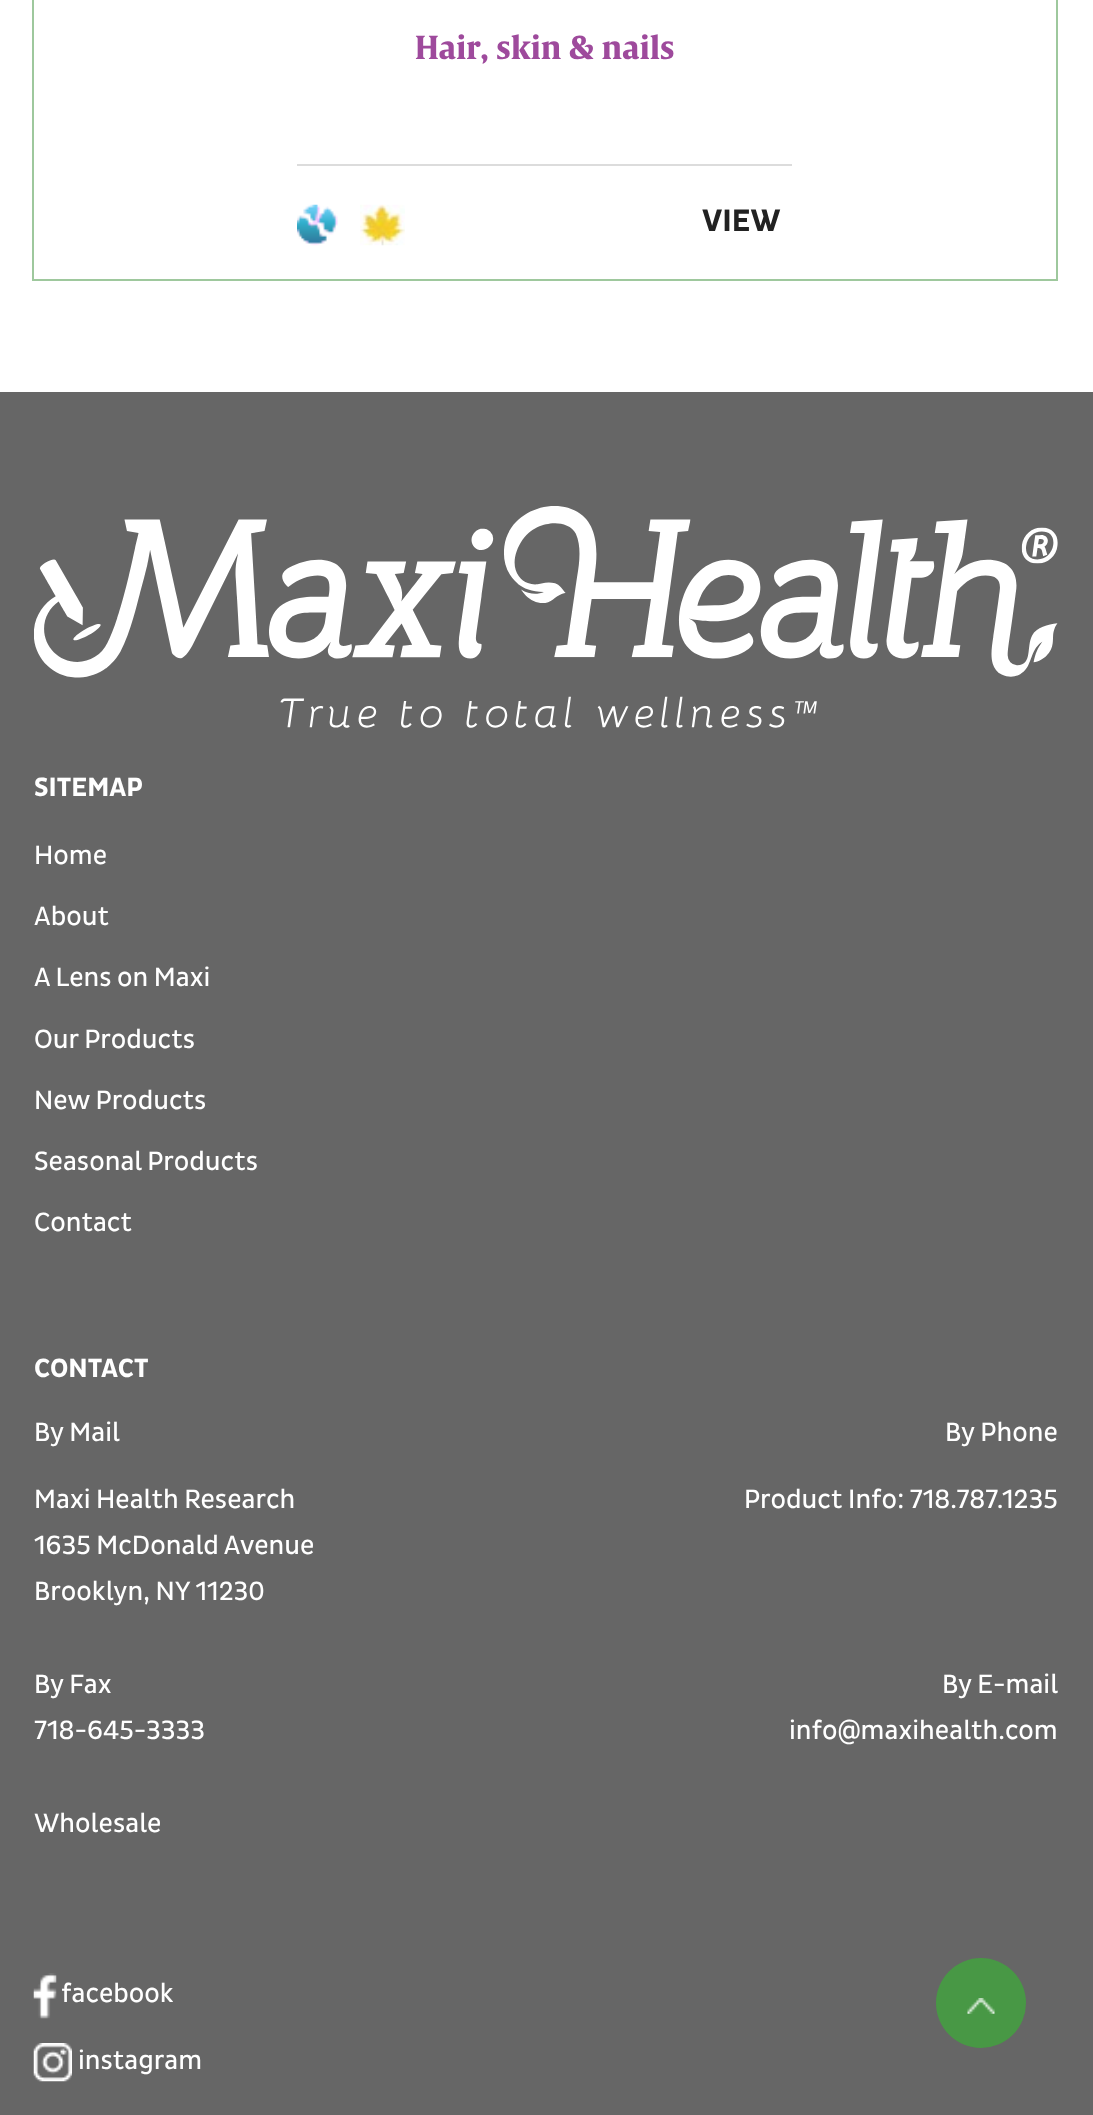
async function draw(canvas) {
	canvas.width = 1093;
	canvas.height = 2115;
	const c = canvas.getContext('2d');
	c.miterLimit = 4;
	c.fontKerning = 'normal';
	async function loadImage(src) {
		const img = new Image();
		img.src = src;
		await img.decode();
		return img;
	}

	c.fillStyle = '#fff';
	c.fillRect(0, 0, 1093, 2115);
	c.strokeStyle = '#9ec89d';
	c.lineWidth = 2;
	c.strokeRect(33, -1, 1024, 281);
	c.font = 'bold 31.5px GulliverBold';
	c.fillStyle = '#9e4a9c';
	c.fillText('Hair, skin & nails', 415, 59);
	c.fillStyle = '#dcdcdc';
	c.fillRect(297, 164, 495, 2);
	c.drawImage(await loadImage('img1.png'), 297, 204, 41, 42);
	c.drawImage(await loadImage('img2.png'), 360, 204, 45, 42);
	c.font = 'bold 31.5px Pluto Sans';
	c.fillStyle = '#222';
	c.fillText('VIEW', 702, 231);
	c.fillStyle = '#666';
	c.fillRect(0, 392, 1093, 1723);
	c.drawImage(await loadImage('img3.png'), 34, 506, 1024, 222);
	c.font = 'bold 27px Pluto Sans';
	c.fillStyle = '#fff';
	c.fillText('SITEMAP', 34, 796);
	c.font = '27px Pluto Sans';
	for (const [text, x, y] of [
		['Home', 34, 864],
		['About', 34, 925],
		['A Lens on Maxi', 34, 986],
		['Our Products', 34, 1048],
		['New Products', 34, 1109],
		['Seasonal Products', 34, 1170],
		['Contact', 34, 1231],
	]) {
		c.fillText(text, x, y);
	}
	c.font = 'bold 27px Pluto Sans';
	c.fillText('CONTACT', 34, 1377);
	c.font = '27px Pluto Sans';
	for (const [text, x, y] of [
		['By Mail', 34, 1441],
		['Maxi Health Research', 34, 1508],
		['1635 McDonald Avenue', 34, 1554],
		['Brooklyn, NY 11230', 34, 1600],
		['By Phone', 945, 1441],
		['Product Info: 718.787.1235', 744, 1508],
		['By Fax', 34, 1693],
		['718-645-3333', 34, 1739],
		['By E-mail', 942, 1693],
		['info@maxihealth.com', 789, 1739],
		['Wholesale', 34, 1832],
	]) {
		c.fillText(text, x, y);
	}
	c.drawImage(await loadImage('img4.png'), 33, 1973, 24, 46);
	c.fillText('facebook', 61, 2002);
	c.drawImage(await loadImage('img5.png'), 33, 2043, 39, 39);
	c.fillText('instagram', 78, 2069);
	c.fillStyle = '#489845';
	c.beginPath();
	c.arc(981, 2003, 45, 0, 2 * Math.PI);
	c.fill();
	c.drawImage(await loadImage('img6.png'), 967, 1998, 28, 16);
}

draw(document.querySelector('canvas'));
